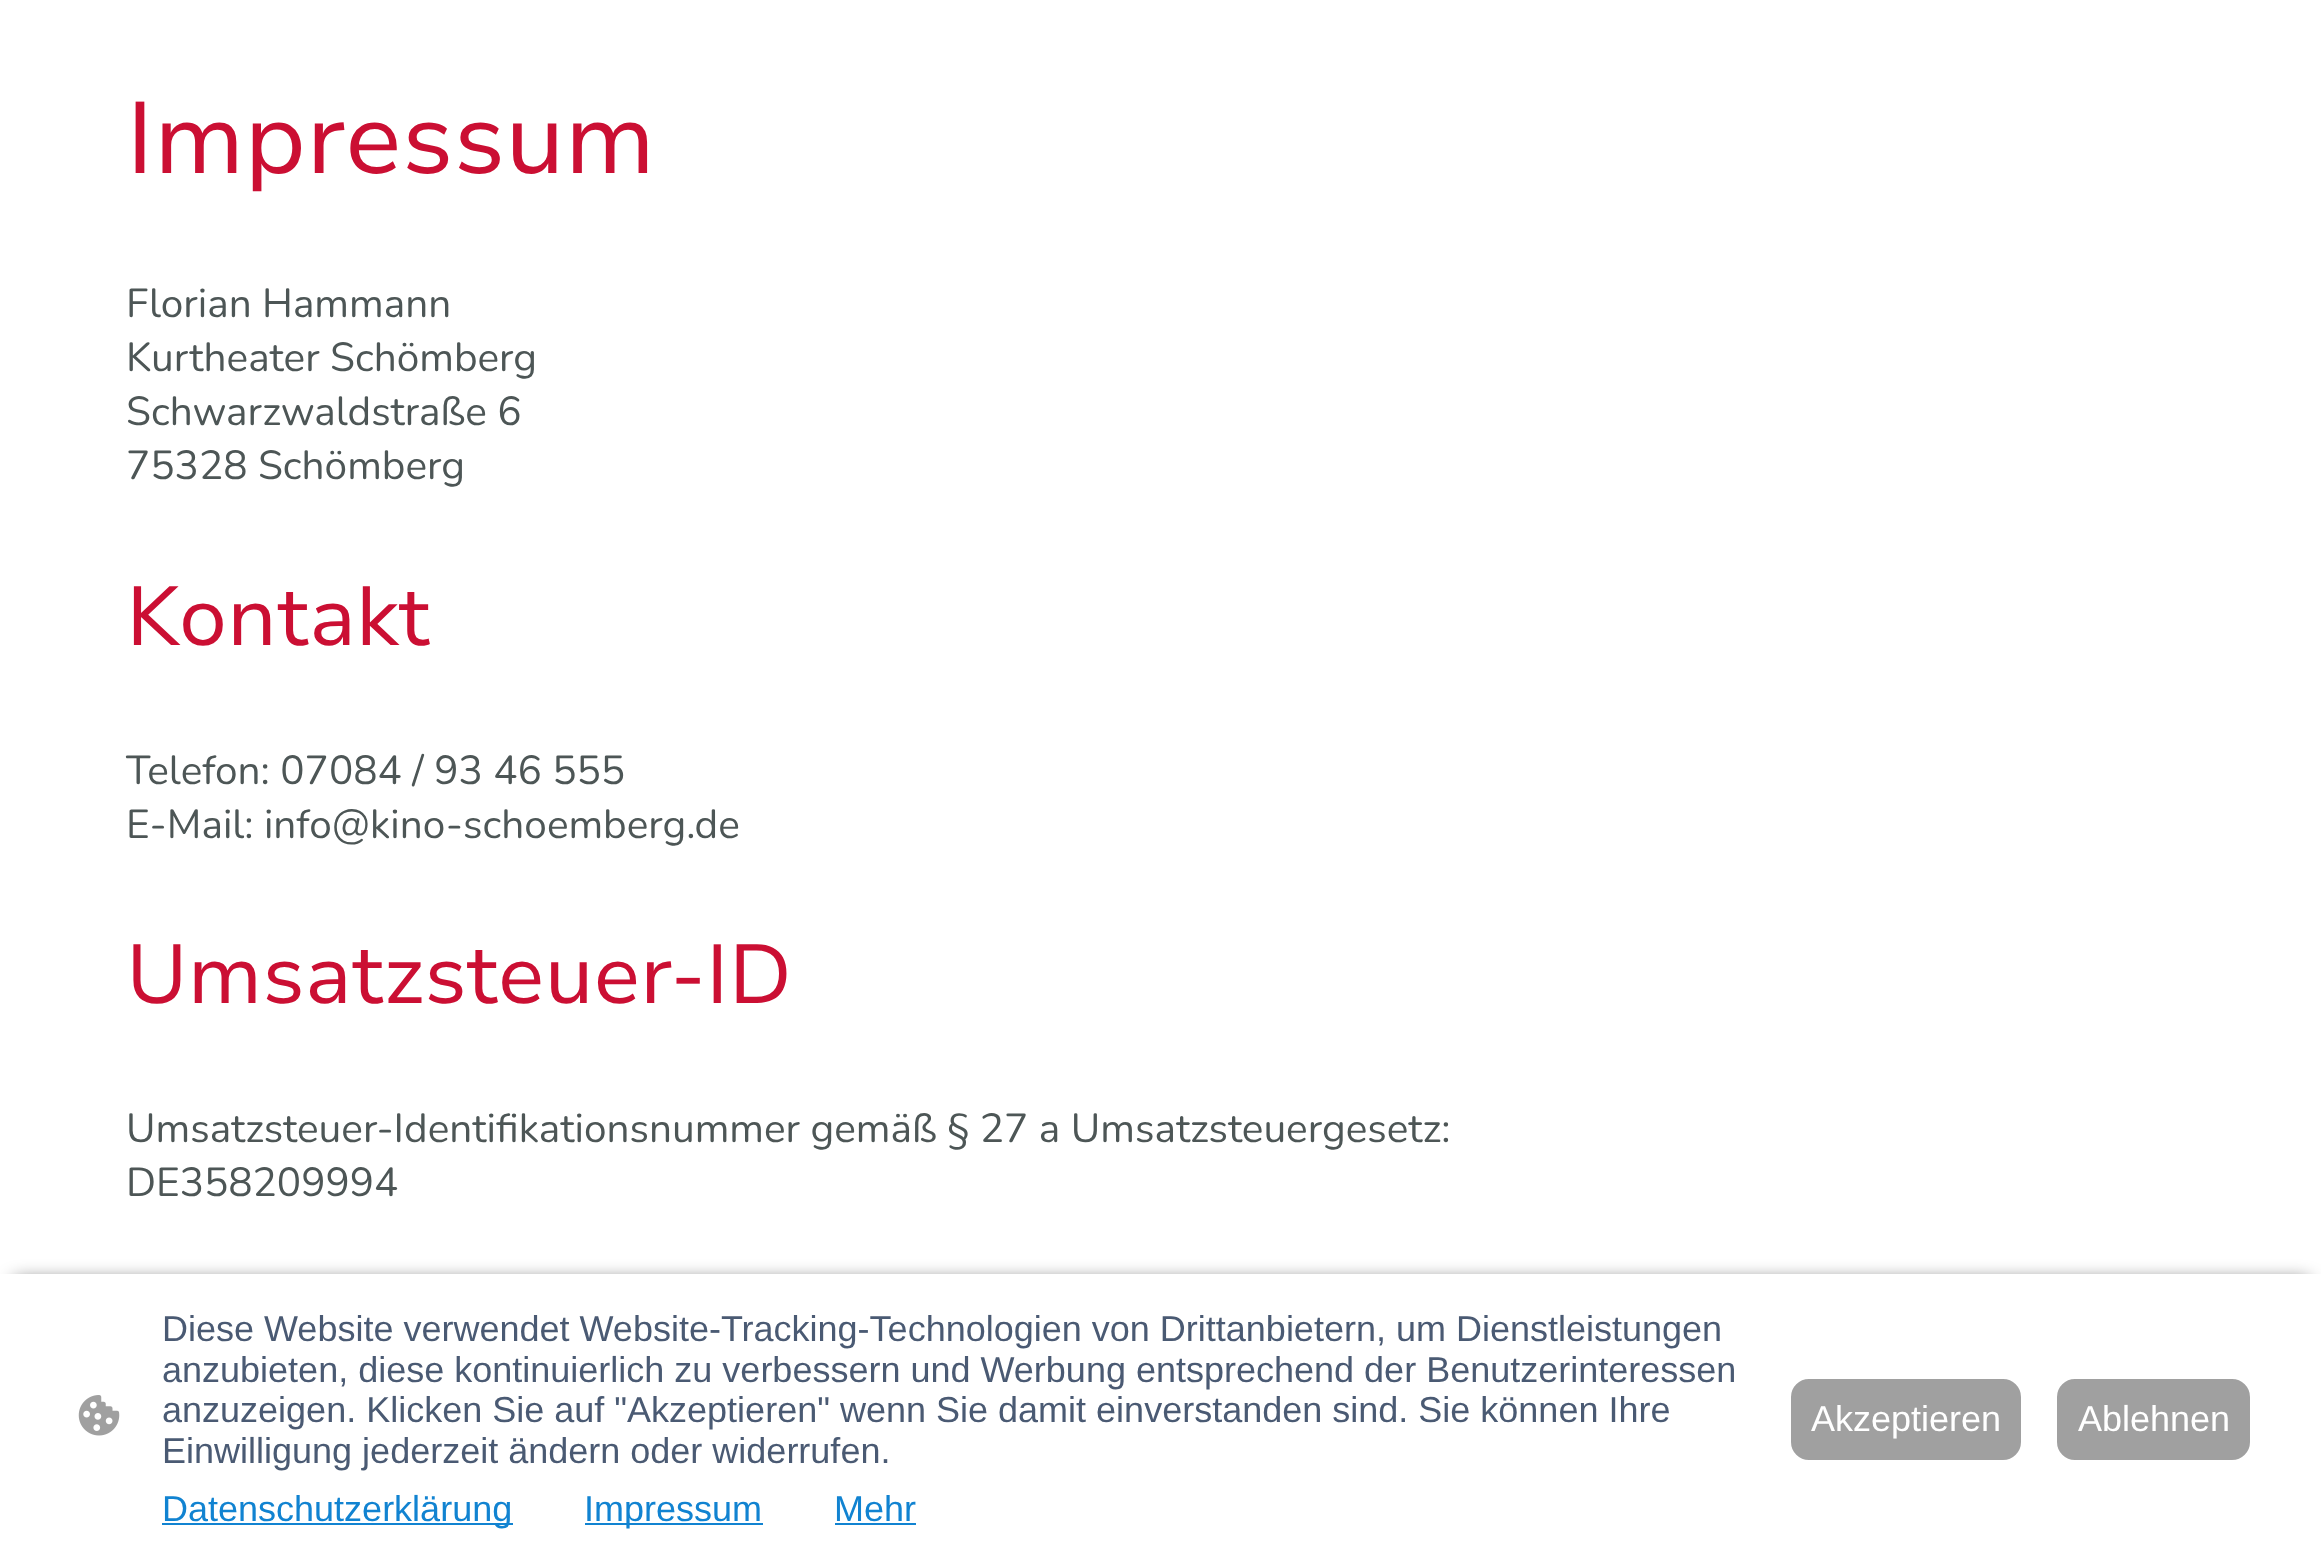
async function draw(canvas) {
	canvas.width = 2321;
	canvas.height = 1564;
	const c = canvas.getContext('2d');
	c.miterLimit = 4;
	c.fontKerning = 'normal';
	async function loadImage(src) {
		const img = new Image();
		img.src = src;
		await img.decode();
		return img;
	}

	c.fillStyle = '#fff';
	c.fillRect(0, 0, 2321, 1564);
	c.font = '101.25px Nunito Sans';
	c.fillStyle = '#cb0f33';
	c.fillText('Impressum', 126, 173);
	c.font = '40.5px Nunito';
	c.fillStyle = '#4d5656';
	for (const [text, x, y] of [
		['Florian Hammann', 126, 317],
		['Kurtheater Schömberg', 126, 371],
		['Schwarzwaldstraße 6', 126, 425],
		['75328 Schömberg', 126, 479],
	]) {
		c.fillText(text, x, y);
	}
	c.font = '83.25px Nunito Sans';
	c.fillStyle = '#cb0f33';
	c.fillText('Kontakt', 126, 645);
	c.font = '40.5px Nunito';
	c.fillStyle = '#4d5656';
	c.fillText('Telefon: 07084 / 93 46 555', 126, 784);
	c.fillText('E-Mail: info@kino-schoemberg.de', 126, 838);
	c.font = '83.25px Nunito Sans';
	c.fillStyle = '#cb0f33';
	c.fillText('Umsatzsteuer-ID', 126, 1003);
	c.font = '40.5px Nunito';
	c.fillStyle = '#4d5656';
	c.fillText('Umsatzsteuer-Identifikationsnummer gemäß § 27 a Umsatzsteuergesetz:', 126, 1142);
	c.fillText('DE358209994', 126, 1196);
	c.fillStyle = '#000000a1';
	c.filter = 'blur(9px)';
	c.beginPath();
	c.rect(14, 1280, 2295, 266);
	c.fill();
	c.filter = 'none';
	c.fillStyle = '#fff';
	c.fillRect(0, 1274, 2321, 290);
	c.drawImage(await loadImage('img1.png'), 78, 1395, 42, 41);
	c.font = '36px Liberation Sans';
	c.fillStyle = '#4a5a73';
	for (const [text, x, y] of [
		['Diese Website verwendet Website-Tracking-Technologien von Drittanbietern, um Dienstleistungen', 162, 1341],
		['anzubieten, diese kontinuierlich zu verbessern und Werbung entsprechend der Benutzerinteressen', 162, 1382],
		['anzuzeigen. Klicken Sie auf "Akzeptieren" wenn Sie damit einverstanden sind. Sie können Ihre', 162, 1422],
		['Einwilligung jederzeit ändern oder widerrufen.', 162, 1463],
	]) {
		c.fillText(text, x, y);
	}
	c.fillStyle = '#1183d1';
	c.fillRect(162, 1523, 351, 2);
	c.fillText('Datenschutzerklärung', 162, 1521);
	c.fillRect(585, 1523, 178, 2);
	c.fillText('Impressum', 584, 1521);
	c.fillText('Mehr', 834, 1521);
	c.fillRect(835, 1523, 81, 2);
	c.fillStyle = '#a0a0a0';
	c.beginPath();
	c.roundRect(1792, 1380, 228, 79, 17);
	c.fill();
	c.strokeStyle = '#a0a0a0';
	c.lineWidth = 2;
	c.stroke();
	c.fillStyle = '#fff';
	c.fillText('Akzeptieren', 1811, 1431);
	c.fillStyle = '#a0a0a0';
	c.beginPath();
	c.roundRect(2058, 1380, 191, 79, 17);
	c.fill();
	c.stroke();
	c.fillStyle = '#fff';
	c.fillText('Ablehnen', 2078, 1431);
}

draw(document.querySelector('canvas'));
